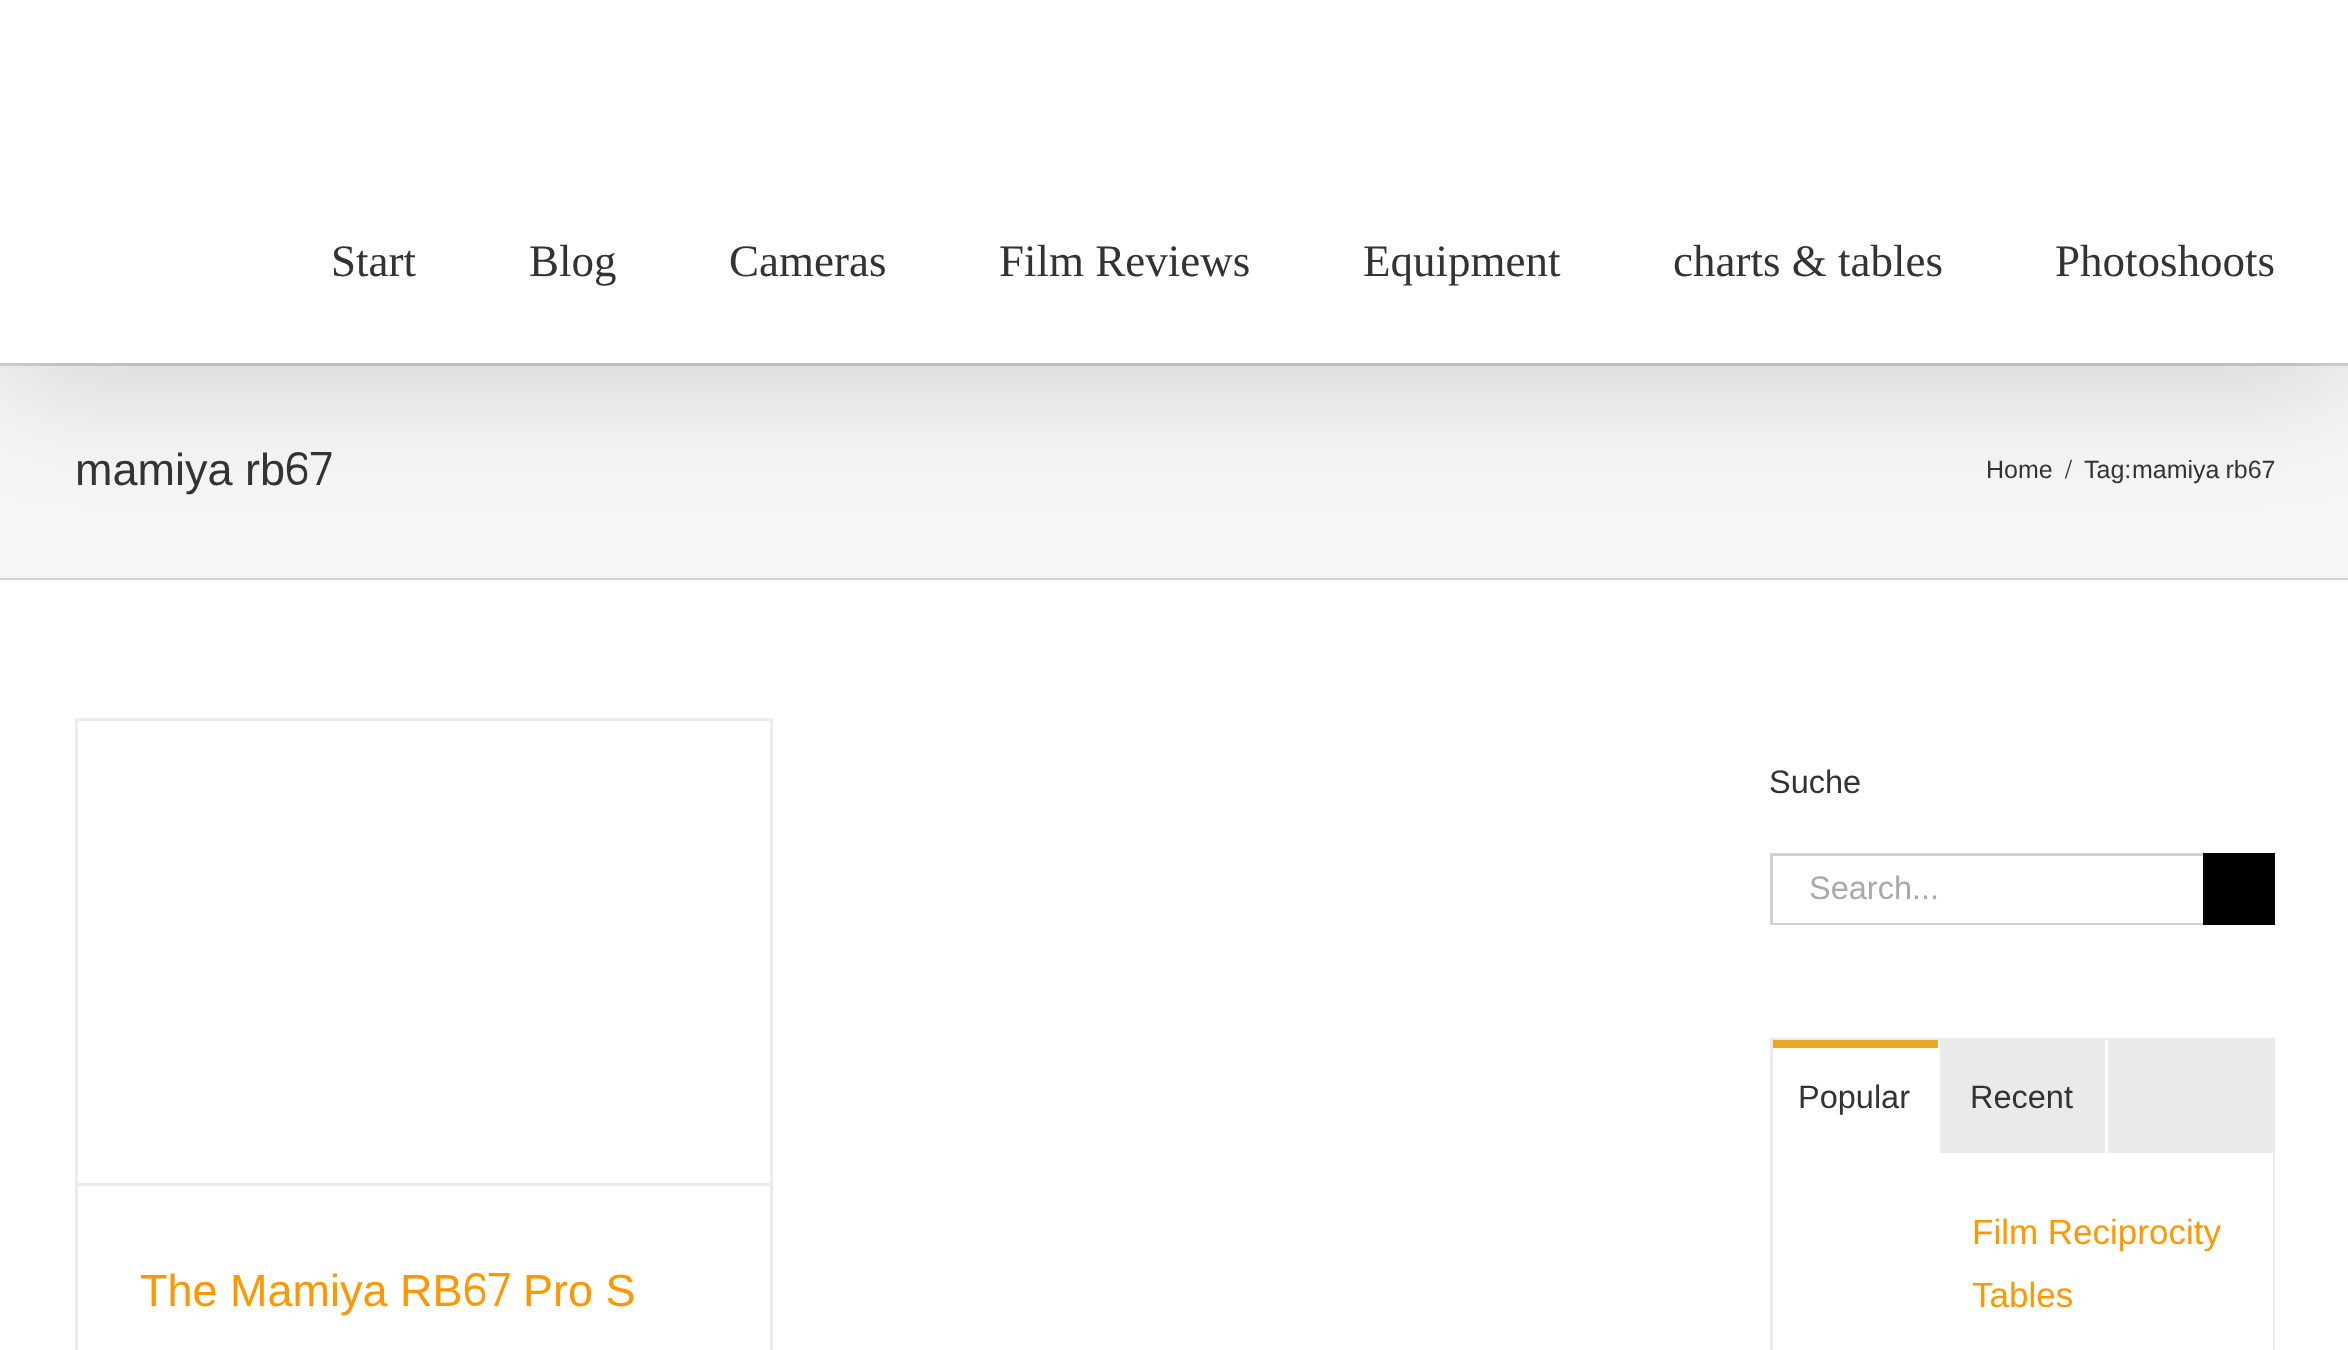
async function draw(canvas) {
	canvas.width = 2348;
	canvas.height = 1350;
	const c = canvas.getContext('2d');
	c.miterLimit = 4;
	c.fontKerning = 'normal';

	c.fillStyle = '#f6f6f6';
	c.fillRect(0, 0, 2348, 1350);
	c.fillStyle = '#d2d3d4';
	c.fillRect(0, 363, 2348, 3);
	c.fillStyle = '#00000024';
	c.filter = 'blur(62.5px)';
	c.beginPath();
	c.rect(5, 30, 2340, 353);
	c.fill();
	c.filter = 'none';
	c.fillStyle = '#fff';
	c.fillRect(0, 0, 2348, 363);
	c.font = '45px Liberation Serif';
	c.fillStyle = '#333';
	for (const [text, x, y] of [
		['Start', 331, 276],
		['Blog', 529, 276],
		['Cameras', 729, 276],
		['Film Reviews', 999, 276],
		['Equipment', 1363, 276],
		['charts & tables', 1673, 276],
		['Photoshoots', 2055, 276],
	]) {
		c.fillText(text, x, y);
	}
	c.fillStyle = '#d2d3d4';
	c.fillRect(0, 578, 2348, 2);
	c.font = '45px Liberation Sans';
	c.fillStyle = '#333';
	c.fillText('mamiya rb', 75, 485);
	c.font = '45px Siemreap';
	c.fillText('67', 285, 485);
	c.font = '25px Liberation Sans';
	c.fillText('Home', 1986, 478);
	c.font = '25px Siemreap';
	c.fillText('/', 2065, 478);
	c.font = '25px Liberation Sans';
	c.fillText('Tag:', 2084, 478);
	c.wordSpacing = '-1px';
	c.fillText('mamiya rb67', 2132, 478);
	for (const [x, y, w, h, color] of [
		[0, 580, 2348, 770, '#fff'],
		[75, 718, 698, 3, '#ebeaea'],
		[770, 718, 3, 632, '#ebeaea'],
		[75, 718, 3, 632, '#ebeaea'],
		[78, 1183, 692, 3, '#ebeaea'],
	]) {
		c.fillStyle = color;
		c.fillRect(x, y, w, h);
	}
	c.wordSpacing = '0px';
	c.font = '45px Liberation Sans';
	c.fillStyle = '#ff9800';
	c.fillText('The Mamiya RB', 140, 1306);
	c.font = '45px Siemreap';
	c.fillText('67', 463, 1306);
	c.font = '45px Liberation Sans';
	c.fillText('Pro S', 523, 1306);
	c.font = '32.5px Liberation Sans';
	c.fillStyle = '#333';
	c.fillText('Suche', 1769, 793);
	for (const [x, y, w, h, color] of [
		[1770, 853, 433, 3, '#d2d2d2'],
		[1770, 923, 433, 2, '#d2d2d2'],
		[1770, 853, 3, 72, '#d2d2d2'],
	]) {
		c.fillStyle = color;
		c.fillRect(x, y, w, h);
	}
	c.fillStyle = '#aaa9a9';
	c.fillText('Search...', 1809, 899);
	c.fillStyle = '#000';
	c.fillRect(2203, 853, 72, 72);
	c.strokeStyle = '#ebeaea';
	c.lineWidth = 3;
	c.strokeRect(1771.5, 1039.5, 502, 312);
	c.fillStyle = '#fff';
	c.fillRect(1938, 1040, 2, 1);
	c.fillStyle = '#e9a825';
	c.fillRect(1773, 1040, 165, 8);
	c.fillStyle = '#333';
	c.fillText('Popular', 1798, 1108);
	c.fillStyle = '#fff';
	c.fillRect(2105, 1040, 3, 1);
	c.fillStyle = '#ebeaea';
	c.fillRect(1940, 1041, 165, 112);
	c.fillStyle = '#333';
	c.fillText('Recent', 1970, 1108);
	c.fillStyle = '#ebeaea';
	c.fillRect(2108, 1041, 164, 112);
	c.fillStyle = '#fff';
	c.fillRect(2272, 1153, 1, 197);
	c.font = '35px Liberation Sans';
	c.fillStyle = '#ff9800';
	c.fillText('Film Reciprocity', 1972, 1244);
	c.save();
	c.beginPath();
	c.rect(1973, 1203, 262, 125);
	c.clip();
	c.fillText('Tables', 1972, 1307);
	c.restore();
}

draw(document.querySelector('canvas'));
